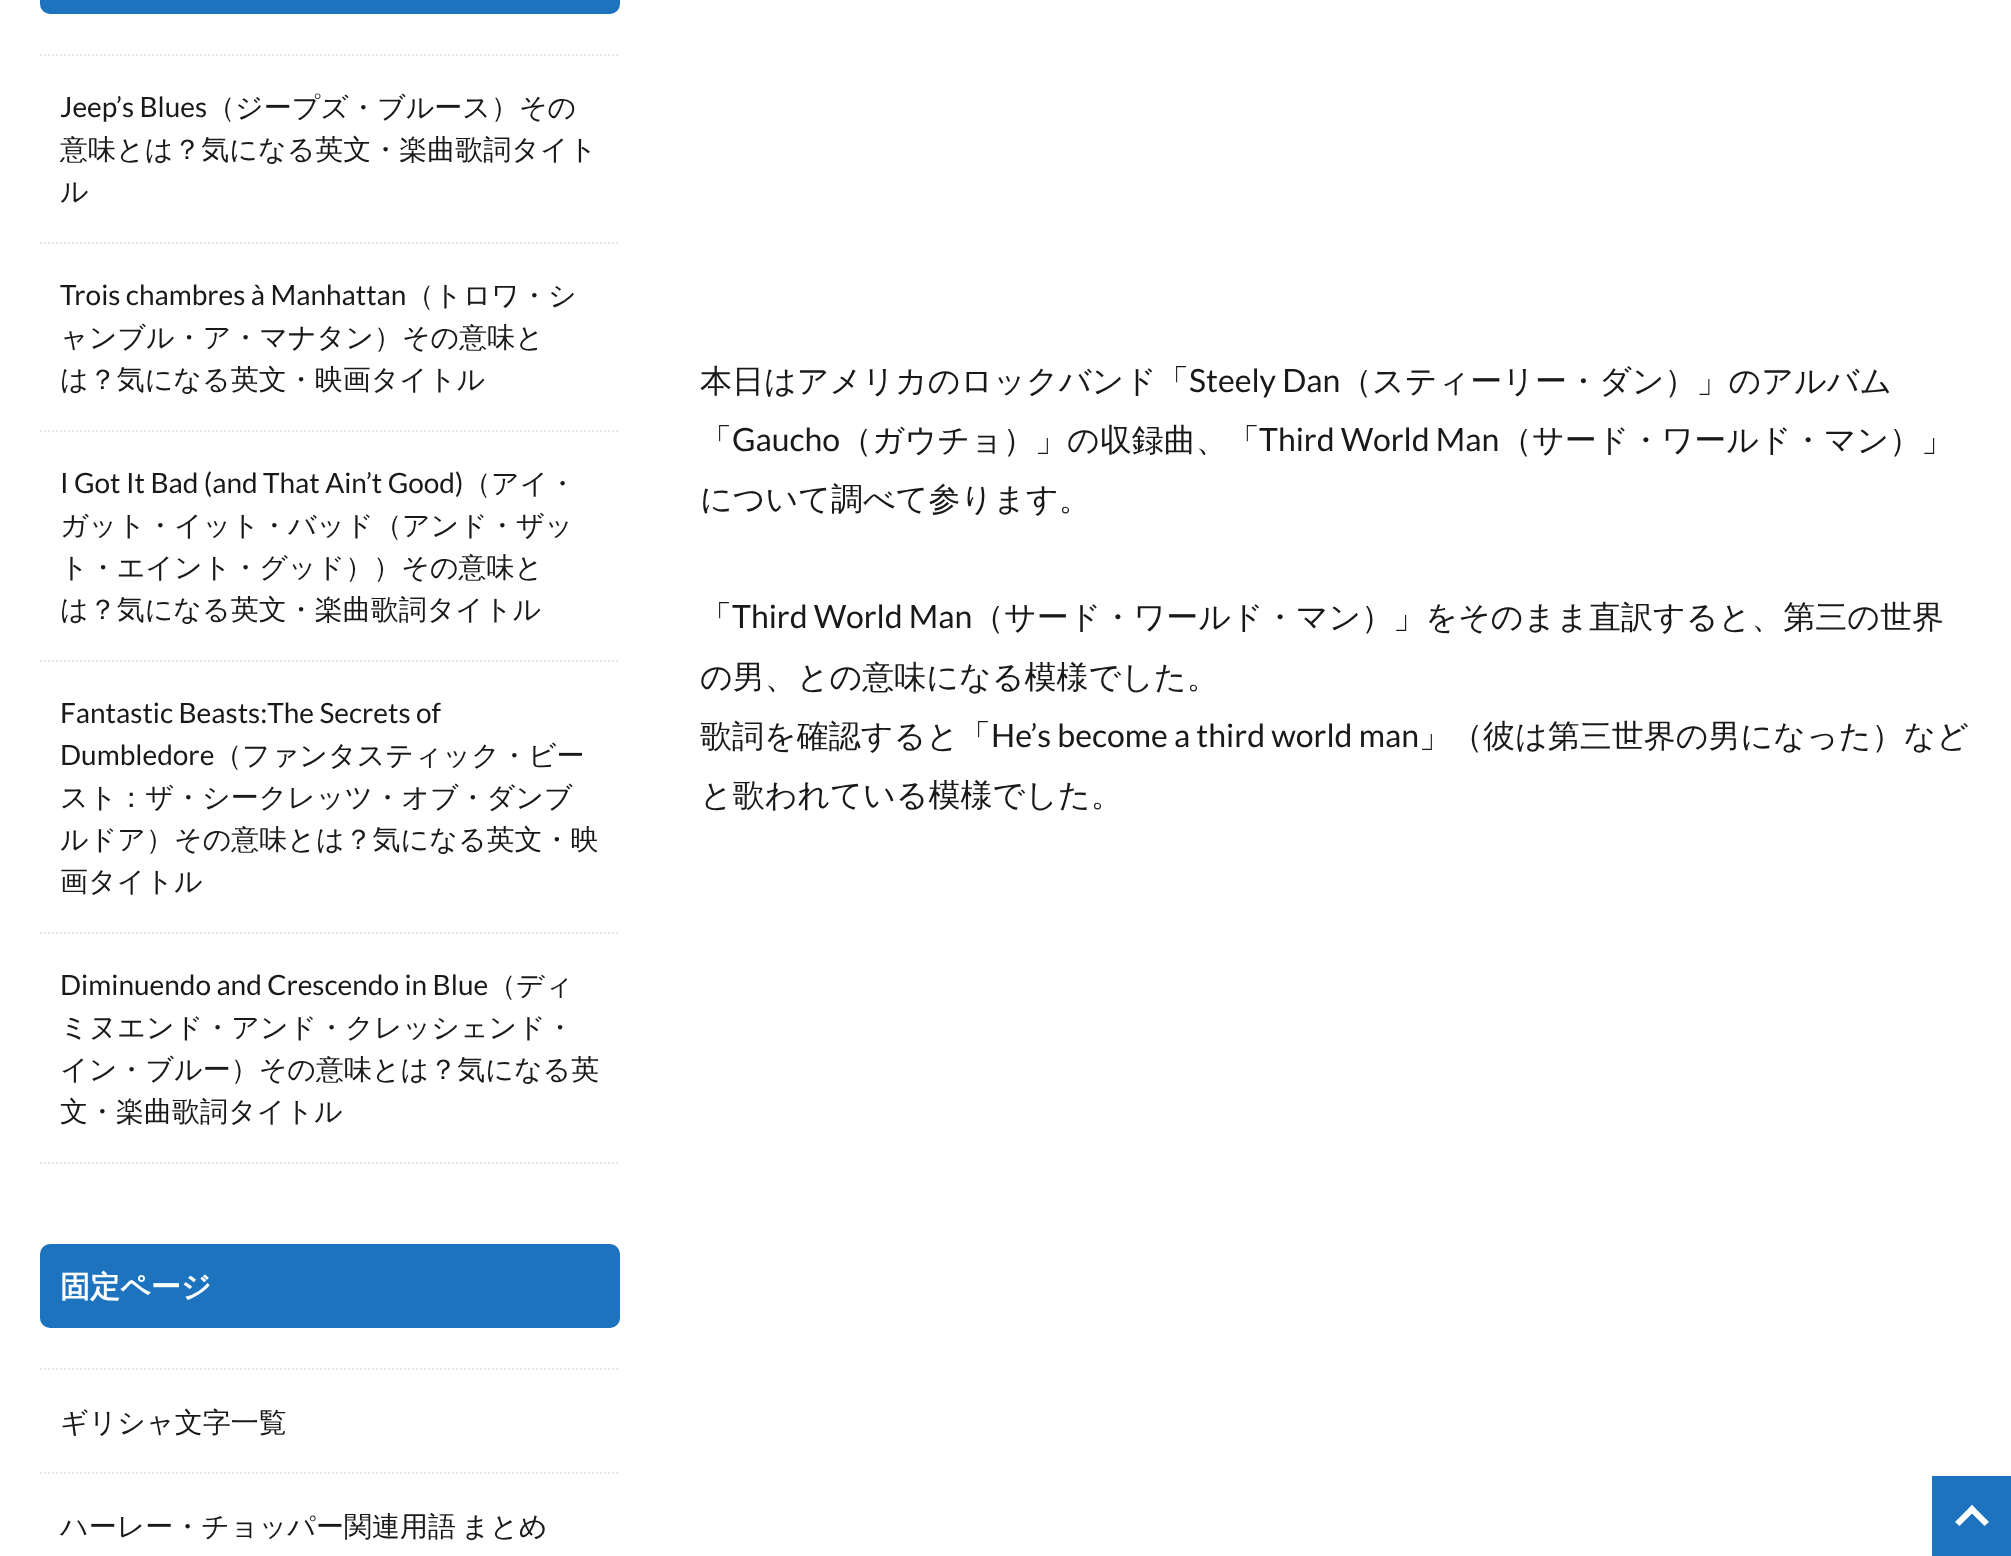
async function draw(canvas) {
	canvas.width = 2011;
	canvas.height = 1556;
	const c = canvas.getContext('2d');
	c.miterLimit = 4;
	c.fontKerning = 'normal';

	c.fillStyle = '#fff';
	c.fillRect(0, 0, 2011, 1556);
	c.fillStyle = '#1e73be';
	c.beginPath();
	c.roundRect(40, -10, 580, 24, 10);
	c.fill();
	c.beginPath();
	c.moveTo(40, 55);
	c.lineTo(620, 55);
	c.strokeStyle = '#e6e6e6';
	c.lineWidth = 2;
	c.setLineDash([2, 2]);
	c.stroke();
	c.beginPath();
	c.moveTo(40, 243);
	c.lineTo(620, 243);
	c.stroke();
	c.font = '28px Lato';
	c.fillStyle = '#191919';
	c.fillText('Jeep’s Blues', 60, 117);
	c.font = '500 28px WenQuanYi Zen Hei';
	for (const [text, x, y] of [
		['（ジープズ・ブルース）その', 207, 117],
		['意味とは？気になる英文・楽曲歌詞タイト', 60, 159],
		['ル', 60, 201],
	]) {
		c.fillText(text, x, y);
	}
	c.beginPath();
	c.moveTo(40, 431);
	c.lineTo(620, 431);
	c.stroke();
	c.font = '28px Lato';
	c.fillText('Trois chambres à Manhattan', 60, 305);
	c.font = '500 28px WenQuanYi Zen Hei';
	for (const [text, x, y] of [
		['（トロワ・シ', 406, 305],
		['ャンブル・ア・マナタン）その意味と', 60, 347],
		['は？気になる英文・映画タイトル', 60, 389],
	]) {
		c.fillText(text, x, y);
	}
	c.beginPath();
	c.moveTo(40, 661);
	c.lineTo(620, 661);
	c.stroke();
	c.font = '28px Lato';
	c.fillText('I Got It Bad (and That Ain’t Good)', 60, 493);
	c.font = '500 28px WenQuanYi Zen Hei';
	for (const [text, x, y] of [
		['（アイ・', 463, 493],
		['ガット・イット・バッド（アンド・ザッ', 60, 535],
		['ト・エイント・グッド））その意味と', 60, 577],
		['は？気になる英文・楽曲歌詞タイトル', 60, 619],
	]) {
		c.fillText(text, x, y);
	}
	c.beginPath();
	c.moveTo(40, 933);
	c.lineTo(620, 933);
	c.stroke();
	c.font = '28px Lato';
	c.fillText('Fantastic Beasts:The Secrets of', 60, 723);
	c.fillText('Dumbledore', 60, 765);
	c.font = '500 28px WenQuanYi Zen Hei';
	for (const [text, x, y] of [
		['（ファンタスティック・ビー', 214, 765],
		['スト：ザ・シークレッツ・オブ・ダンブ', 60, 807],
		['ルドア）その意味とは？気になる英文・映', 60, 849],
		['画タイトル', 60, 891],
	]) {
		c.fillText(text, x, y);
	}
	c.beginPath();
	c.moveTo(40, 1163);
	c.lineTo(620, 1163);
	c.stroke();
	c.font = '28px Lato';
	c.fillText('Diminuendo and Crescendo in Blue', 60, 995);
	c.font = '500 28px WenQuanYi Zen Hei';
	for (const [text, x, y] of [
		['（ディ', 488, 995],
		['ミヌエンド・アンド・クレッシェンド・', 60, 1037],
		['イン・ブルー）その意味とは？気になる英', 60, 1079],
		['文・楽曲歌詞タイトル', 60, 1121],
	]) {
		c.fillText(text, x, y);
	}
	c.fillStyle = '#1e73be';
	c.beginPath();
	c.roundRect(40, 1244, 580, 84, 10);
	c.fill();
	c.font = 'bold 30px WenQuanYi Zen Hei';
	c.fillStyle = '#fff';
	c.fillText('固定ページ', 60, 1297);
	c.beginPath();
	c.moveTo(40, 1369);
	c.lineTo(620, 1369);
	c.stroke();
	c.beginPath();
	c.moveTo(40, 1473);
	c.lineTo(620, 1473);
	c.stroke();
	c.font = '500 28px WenQuanYi Zen Hei';
	c.fillStyle = '#191919';
	c.fillText('ギリシャ文字一覧', 60, 1432);
	c.wordSpacing = '-3px';
	c.fillText('ハーレー・チョッパー関連用語 まとめ', 60, 1536);
	c.wordSpacing = '0px';
	c.font = '500 32px WenQuanYi Zen Hei';
	c.fillText('本日はアメリカのロックバンド「', 700, 392);
	c.font = '32px Lato';
	c.fillText('Steely Dan', 1189, 392);
	c.font = '500 32px WenQuanYi Zen Hei';
	c.fillText('（スティーリー・ダン）」のアルバム', 1340, 392);
	c.fillText('「', 700, 451);
	c.font = '32px Lato';
	c.fillText('Gaucho', 732, 451);
	c.font = '500 32px WenQuanYi Zen Hei';
	c.fillText('（ガウチョ）」の収録曲、「', 840, 451);
	c.font = '32px Lato';
	c.fillText('Third World Man', 1259, 451);
	c.font = '500 32px WenQuanYi Zen Hei';
	for (const [text, x, y] of [
		['（サード・ワールド・マン）」', 1500, 451],
		['について調べて参ります。', 700, 510],
		['「', 700, 628],
	]) {
		c.fillText(text, x, y);
	}
	c.font = '32px Lato';
	c.fillText('Third World Man', 732, 628);
	c.font = '500 32px WenQuanYi Zen Hei';
	for (const [text, x, y] of [
		['（サード・ワールド・マン）」をそのまま直訳すると、第三の世界', 972, 628],
		['の男、との意味になる模様でした。', 700, 688],
		['歌詞を確認すると「', 700, 747],
	]) {
		c.fillText(text, x, y);
	}
	c.font = '32px Lato';
	c.fillText('He’s become a third world man', 991, 747);
	c.font = '500 32px WenQuanYi Zen Hei';
	c.fillText('」（彼は第三世界の男になった）など', 1419, 747);
	c.fillText('と歌われている模様でした。', 700, 806);
	c.fillStyle = '#1e73be';
	c.fillRect(1932, 1476, 79, 80);
	c.fillStyle = '#fff';
	c.beginPath();
	c.moveTo(1955, 1522);
	c.lineTo(1972, 1505);
	c.lineTo(1976, 1509.5);
	c.lineTo(1959.5, 1526);
	c.closePath();
	c.fill();
	c.beginPath();
	c.moveTo(1968, 1509.5);
	c.lineTo(1972, 1505);
	c.lineTo(1989, 1522);
	c.lineTo(1984.5, 1526);
	c.closePath();
	c.fill();
}

draw(document.querySelector('canvas'));
